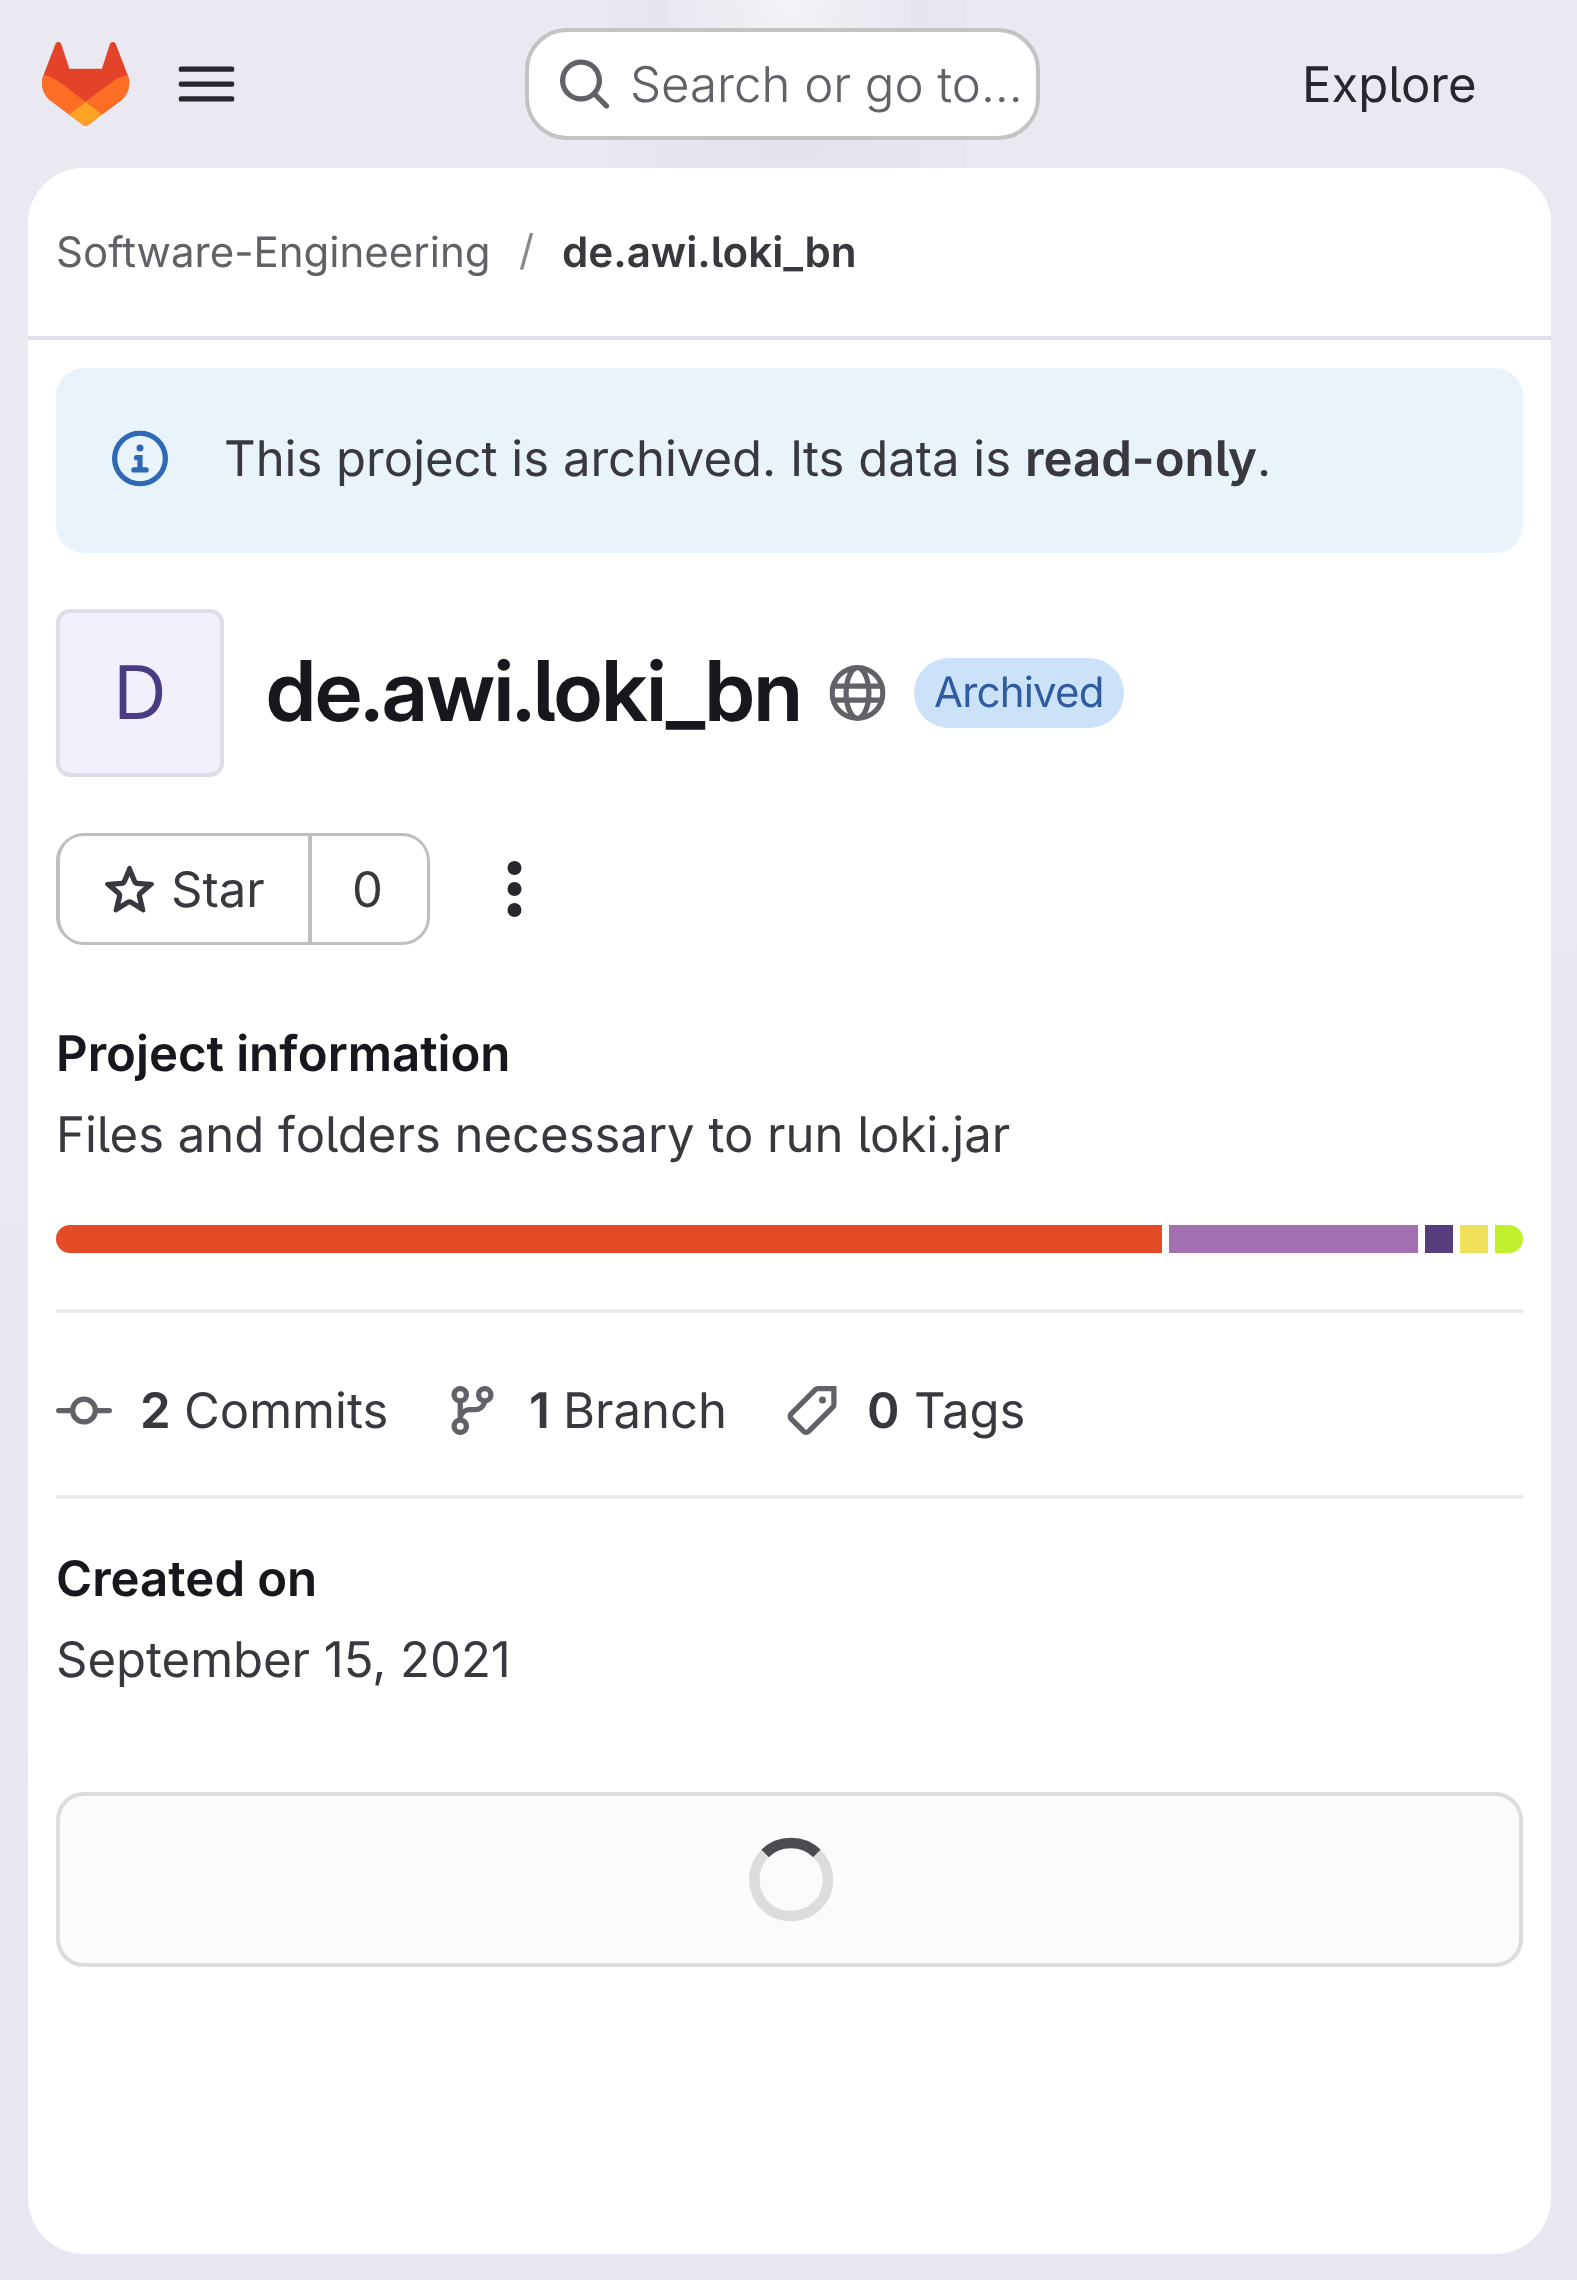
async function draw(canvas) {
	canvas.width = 1577;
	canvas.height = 2280;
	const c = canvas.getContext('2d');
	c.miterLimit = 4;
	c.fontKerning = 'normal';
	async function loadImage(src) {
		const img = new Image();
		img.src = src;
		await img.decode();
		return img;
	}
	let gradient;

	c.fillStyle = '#fff';
	c.fillRect(0, 0, 1577, 2280);
	gradient = c.createLinearGradient(1008, 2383, 570, -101);
	gradient.addColorStop(0, '#e8e6f0');
	gradient.addColorStop(0.7, '#eae9f2');
	c.fillStyle = gradient;
	c.fillRect(0, 0, 1577, 2280);
	gradient = c.createRadialGradient(789, 0, 0, 789, 0, 789);
	gradient.addColorStop(0, '#e4e2ed');
	gradient.addColorStop(0.31, '#e4e2ed00');
	c.fillStyle = gradient;
	c.beginPath();
	c.rect(612, 0, 354, 168);
	c.save();
	c.clip();
	c.scale(1, 2282 / 789);
	c.fillRect(0, 0, 1577, 789);
	c.restore();
	gradient = c.createRadialGradient(789, 0, 0, 789, 0, 789);
	gradient.addColorStop(0, '#e4e2ec');
	gradient.addColorStop(0.22, '#e4e2ec00');
	c.fillStyle = gradient;
	c.beginPath();
	c.rect(709, 0, 162, 163);
	c.save();
	c.clip();
	c.scale(1, 2282 / 789);
	c.fillRect(0, 0, 1577, 789);
	c.restore();
	gradient = c.createRadialGradient(789, 0, 0, 789, 0, 2415);
	gradient.addColorStop(0, '#ffffff99');
	gradient.addColorStop(0.06, '#ffffff00');
	c.fillStyle = gradient;
	c.fillRect(668, 0, 242, 28);
	c.drawImage(await loadImage('img1.png'), 42, 42, 88, 84);
	c.drawImage(await loadImage('img2.png'), 178, 66, 57, 36);
	c.fillStyle = '#fff';
	c.beginPath();
	c.roundRect(525, 28, 515, 112, 42);
	c.fill();
	c.beginPath();
	c.roundRect(527, 30, 511, 108, 40);
	c.strokeStyle = '#0505063d';
	c.lineWidth = 4;
	c.stroke();
	c.drawImage(await loadImage('img3.png'), 560, 59, 50, 50);
	c.font = '300 49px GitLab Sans';
	c.fillStyle = '#626168';
	c.fillText('Search or go to…', 630, 102);
	c.font = '49px GitLab Sans';
	c.fillStyle = '#28272d';
	c.fillText('Explore', 1302, 102);
	c.fillStyle = '#fff';
	c.beginPath();
	c.roundRect(28, 168, 1523, 2086, 56);
	c.fill();
	c.beginPath();
	c.roundRect(28, 168, 1523, 172, [56, 56, 0, 0]);
	c.fill();
	c.fillStyle = '#e1dfec';
	c.fillRect(28, 336, 1523, 4);
	c.font = '42px GitLab Sans';
	c.fillStyle = '#626168';
	c.fillText('Software-Engineering', 56, 267);
	c.fillStyle = '#89888d';
	c.fillText('/', 519, 265);
	c.font = '600 42px "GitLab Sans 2"';
	c.fillStyle = '#3a383f';
	c.fillText('de.awi.loki_bn', 562, 267);
	c.fillStyle = '#e9f3fc';
	c.beginPath();
	c.roundRect(56, 368, 1467, 185, 28);
	c.fill();
	c.drawImage(await loadImage('img4.png'), 112, 430, 56, 57);
	c.font = '49px GitLab Sans';
	c.fillStyle = '#3a383f';
	c.fillText('This project is archived. Its data is', 224, 476);
	c.font = '600 49px "GitLab Sans 2"';
	c.fillText('read-only', 1025, 476);
	c.font = '49px GitLab Sans';
	c.fillText('.', 1257, 476);
	c.fillStyle = '#f3effc';
	c.beginPath();
	c.roundRect(56, 609, 168, 168, 14);
	c.fill();
	c.beginPath();
	c.roundRect(58, 611, 164, 164, 12);
	c.strokeStyle = '#05050614';
	c.stroke();
	c.font = '74px "GitLab Sans 2"';
	c.fillStyle = '#493c83';
	c.fillText('D', 114, 719);
	c.letterSpacing = '-0.8px';
	c.font = '600 84px GitLab Sans';
	c.fillStyle = '#18171d';
	c.fillText('de.awi.loki_bn', 266, 721);
	c.drawImage(await loadImage('img5.png'), 829, 665, 57, 56);
	c.fillStyle = '#cbe2f9';
	c.beginPath();
	c.roundRect(914, 658, 210, 70, 35);
	c.fill();
	c.font = '42px GitLab Sans';
	c.fillStyle = '#2f5ca0';
	c.fillText('Archived', 934, 707);
	c.fillStyle = '#bfbfc3';
	c.beginPath();
	c.moveTo(84, 833);
	c.lineTo(308, 833);
	c.lineTo(308, 945);
	c.lineTo(84, 945);
	c.bezierCurveTo(69, 945, 56, 932, 56, 917);
	c.lineTo(56, 861);
	c.bezierCurveTo(56, 846, 69, 833, 84, 833);
	c.closePath();
	c.moveTo(84, 836);
	c.lineTo(308, 836);
	c.lineTo(308, 942);
	c.lineTo(84, 942);
	c.bezierCurveTo(70, 942, 60, 931, 60, 917);
	c.lineTo(60, 861);
	c.bezierCurveTo(60, 847, 70, 836, 84, 836);
	c.closePath();
	c.fill('evenodd');
	c.drawImage(await loadImage('img6.png'), 105, 865, 49, 48);
	c.letterSpacing = '0px';
	c.font = '49px GitLab Sans';
	c.fillStyle = '#3a383f';
	c.fillText('Star', 171, 907);
	c.fillStyle = '#bfbfc3';
	c.beginPath();
	c.moveTo(312, 833);
	c.lineTo(402, 833);
	c.bezierCurveTo(418, 833, 430, 846, 430, 861);
	c.lineTo(430, 917);
	c.bezierCurveTo(430, 932, 418, 945, 402, 945);
	c.lineTo(312, 945);
	c.closePath();
	c.moveTo(312, 836);
	c.lineTo(402, 836);
	c.bezierCurveTo(416, 836, 427, 847, 427, 861);
	c.lineTo(427, 917);
	c.bezierCurveTo(427, 931, 416, 942, 402, 942);
	c.lineTo(312, 942);
	c.closePath();
	c.fill('evenodd');
	c.fillRect(308, 833, 4, 112);
	c.fillStyle = '#3a383f';
	c.fillText('0', 352, 907);
	c.drawImage(await loadImage('img7.png'), 507, 861, 15, 56);
	c.fillStyle = '#ececef';
	c.fillRect(56, 1309, 1467, 4);
	c.font = '600 49px "GitLab Sans 2"';
	c.fillStyle = '#18171d';
	c.fillText('Project information', 56, 1071);
	c.font = '49px GitLab Sans';
	c.fillStyle = '#3a383f';
	c.fillText('Files and folders necessary to run loki.jar', 56, 1152);
	c.fillStyle = '#e34c26';
	c.beginPath();
	c.roundRect(56, 1225, 1106, 28, [14, 0, 0, 14]);
	c.fill();
	for (const [x, y, w, h, color] of [
		[1169, 1225, 249, 28, '#a370b2'],
		[1425, 1225, 28, 28, '#563d7c'],
		[1460, 1225, 28, 28, '#f1e05a'],
	]) {
		c.fillStyle = color;
		c.fillRect(x, y, w, h);
	}
	c.fillStyle = '#c1f12e';
	c.beginPath();
	c.roundRect(1495, 1225, 28, 28, [0, 14, 14, 0]);
	c.fill();
	c.fillStyle = '#ececef';
	c.fillRect(56, 1495, 1467, 4);
	c.drawImage(await loadImage('img8.png'), 56, 1396, 56, 29);
	c.font = '600 49px "GitLab Sans 2"';
	c.fillStyle = '#3a383f';
	c.fillText('2', 140, 1428);
	c.font = '49px GitLab Sans';
	c.fillText('Commits', 184, 1428);
	c.drawImage(await loadImage('img9.png'), 451, 1386, 43, 49);
	c.font = '600 49px "GitLab Sans 2"';
	c.fillText('1', 529, 1428);
	c.font = '49px GitLab Sans';
	c.fillText('Branch', 563, 1428);
	c.drawImage(await loadImage('img10.png'), 787, 1386, 50, 49);
	c.font = '600 49px "GitLab Sans 2"';
	c.fillText('0', 867, 1428);
	c.font = '49px GitLab Sans';
	c.fillText('Tags', 914, 1428);
	c.font = '600 49px "GitLab Sans 2"';
	c.fillStyle = '#18171d';
	c.fillText('Created on', 56, 1596);
	c.font = '49px GitLab Sans';
	c.fillStyle = '#3a383f';
	c.fillText('September 15, 2021', 56, 1677);
	c.fillStyle = '#fbfafd';
	c.beginPath();
	c.roundRect(58, 1794, 1463, 171, 26);
	c.fill();
	c.strokeStyle = '#dcdcde';
	c.stroke();
	c.beginPath();
	c.moveTo(765, 1853.5);
	c.bezierCurveTo(779, 1839.5, 803, 1839.5, 817, 1853.5);
	c.strokeStyle = '#4c4b51';
	c.lineWidth = 10.5;
	c.stroke();
	c.beginPath();
	c.moveTo(817, 1853.5);
	c.bezierCurveTo(824, 1860.5, 828, 1870, 828, 1879.5);
	c.bezierCurveTo(827.5, 1923.5, 763.5, 1930, 755, 1886.5);
	c.bezierCurveTo(752.5, 1875, 756.5, 1862, 765, 1853.5);
	c.strokeStyle = '#dcdcde';
	c.stroke();
}

draw(document.querySelector('canvas'));
